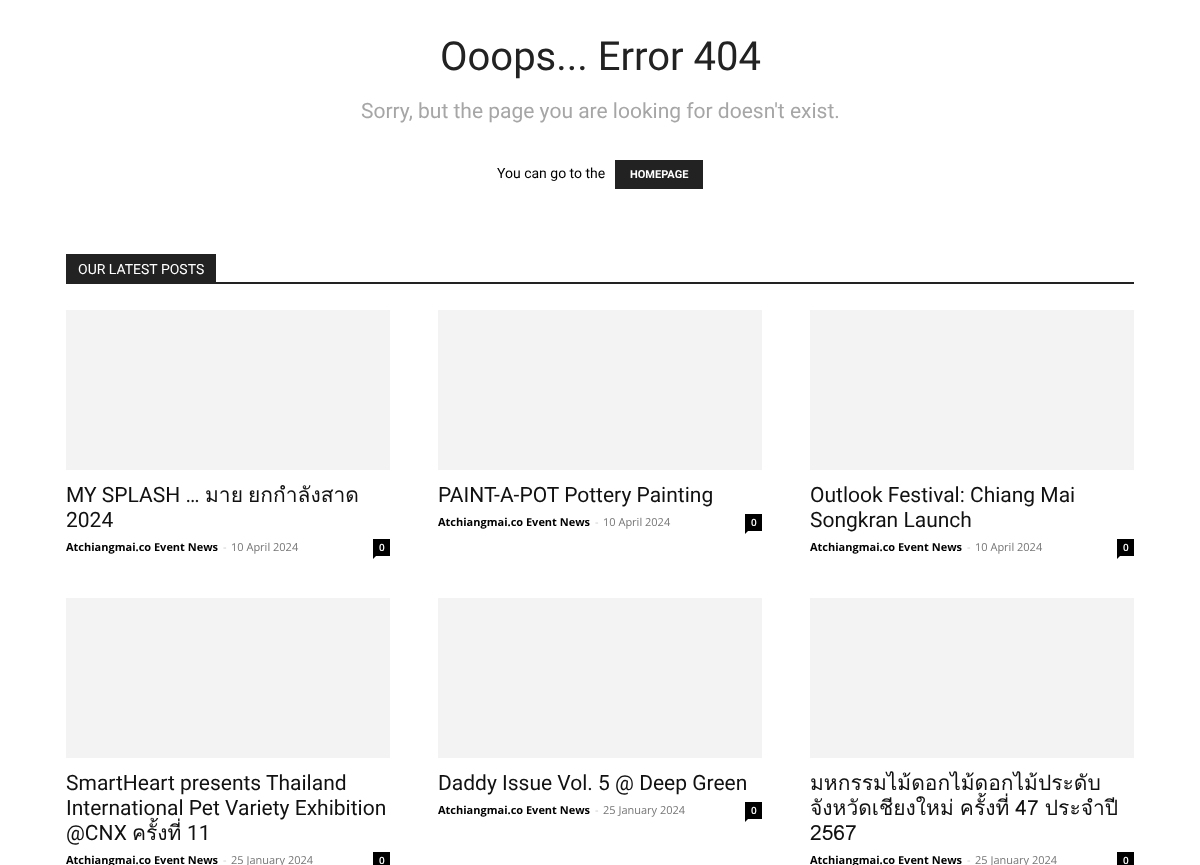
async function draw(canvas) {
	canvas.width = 1200;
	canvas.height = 865;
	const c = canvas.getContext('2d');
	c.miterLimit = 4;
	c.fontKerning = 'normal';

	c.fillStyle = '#fff';
	c.fillRect(0, 0, 1200, 865);
	c.font = '40px Roboto';
	c.fillStyle = '#222';
	c.fillText('Ooops... Error 404', 440, 70);
	c.font = '21px Roboto';
	c.fillStyle = '#a6a6a6';
	c.fillText('Sorry, but the page you are looking for doesn\'t exist.', 361, 118);
	c.font = '14px Roboto';
	c.fillStyle = '#000';
	c.fillText('You can go to the', 497, 178);
	c.fillStyle = '#222';
	c.fillRect(615, 160, 88, 29);
	c.font = 'bold 11px Roboto';
	c.fillStyle = '#fff';
	c.fillText('HOMEPAGE', 630, 178);
	c.fillStyle = '#222';
	c.fillRect(66, 282, 1068, 2);
	c.fillRect(66, 254, 150, 28);
	c.font = '14px Roboto';
	c.fillStyle = '#fff';
	c.fillText('OUR LATEST POSTS', 78, 274);
	c.fillStyle = '#f3f3f3';
	c.fillRect(66, 310, 324, 160);
	c.font = '21px Roboto';
	c.fillStyle = '#111';
	c.fillText('MY SPLASH …', 66, 502);
	c.font = '21px Loma';
	c.fillText('มาย', 205, 502);
	c.fillText('ยกกำลังสาด', 248, 502);
	c.font = '21px Roboto';
	c.fillText('2024', 66, 527);
	c.font = 'bold 11px Open Sans';
	c.fillStyle = '#000';
	c.fillText('Atchiangmai.co Event News', 66, 551);
	c.font = '11px Open Sans';
	c.fillStyle = '#ccc';
	c.fillText('-', 223, 551);
	c.fillStyle = '#767676';
	c.fillText('10 April 2024', 231, 551);
	c.fillStyle = '#000';
	c.fillRect(373, 539, 17, 17);
	c.font = '600 10px Open Sans';
	c.fillStyle = '#fff';
	c.fillText('0', 379, 551);
	c.fillStyle = '#000';
	c.beginPath();
	c.moveTo(373, 556);
	c.lineTo(376, 556);
	c.lineTo(373, 559);
	c.closePath();
	c.fill();
	c.fillStyle = '#f3f3f3';
	c.fillRect(438, 310, 324, 160);
	c.font = '21px Roboto';
	c.fillStyle = '#111';
	c.fillText('PAINT-A-POT Pottery Painting', 438, 502);
	c.font = 'bold 11px Open Sans';
	c.fillStyle = '#000';
	c.fillText('Atchiangmai.co Event News', 438, 526);
	c.font = '11px Open Sans';
	c.fillStyle = '#ccc';
	c.fillText('-', 595, 526);
	c.fillStyle = '#767676';
	c.fillText('10 April 2024', 603, 526);
	c.fillStyle = '#000';
	c.fillRect(745, 514, 17, 17);
	c.font = '600 10px Open Sans';
	c.fillStyle = '#fff';
	c.fillText('0', 751, 526);
	c.fillStyle = '#000';
	c.beginPath();
	c.moveTo(745, 531);
	c.lineTo(748, 531);
	c.lineTo(745, 534);
	c.closePath();
	c.fill();
	c.fillStyle = '#f3f3f3';
	c.fillRect(810, 310, 324, 160);
	c.font = '21px Roboto';
	c.fillStyle = '#111';
	c.fillText('Outlook Festival: Chiang Mai', 810, 502);
	c.fillText('Songkran Launch', 810, 527);
	c.font = 'bold 11px Open Sans';
	c.fillStyle = '#000';
	c.fillText('Atchiangmai.co Event News', 810, 551);
	c.font = '11px Open Sans';
	c.fillStyle = '#ccc';
	c.fillText('-', 967, 551);
	c.fillStyle = '#767676';
	c.fillText('10 April 2024', 975, 551);
	c.fillStyle = '#000';
	c.fillRect(1117, 539, 17, 17);
	c.font = '600 10px Open Sans';
	c.fillStyle = '#fff';
	c.fillText('0', 1123, 551);
	c.fillStyle = '#000';
	c.beginPath();
	c.moveTo(1117, 556);
	c.lineTo(1120, 556);
	c.lineTo(1117, 559);
	c.closePath();
	c.fill();
	c.fillStyle = '#f3f3f3';
	c.fillRect(66, 598, 324, 160);
	c.font = '21px Roboto';
	c.fillStyle = '#111';
	for (const [text, x, y] of [
		['SmartHeart presents Thailand', 66, 790],
		['International Pet Variety Exhibition', 66, 815],
		['@CNX', 66, 840],
	]) {
		c.fillText(text, x, y);
	}
	c.font = '21px Loma';
	c.fillText('ครั้งที่', 132, 840);
	c.font = '21px Roboto';
	c.fillText('11', 187, 840);
	c.font = 'bold 11px Open Sans';
	c.fillStyle = '#000';
	c.fillText('Atchiangmai.co Event News', 66, 864);
	c.font = '11px Open Sans';
	c.fillStyle = '#ccc';
	c.fillText('-', 223, 864);
	c.fillStyle = '#767676';
	c.fillText('25 January 2024', 231, 864);
	c.fillStyle = '#000';
	c.fillRect(373, 852, 17, 13);
	c.font = '600 10px Open Sans';
	c.fillStyle = '#fff';
	c.fillText('0', 379, 864);
	c.fillStyle = '#f3f3f3';
	c.fillRect(438, 598, 324, 160);
	c.font = '21px Roboto';
	c.fillStyle = '#111';
	c.fillText('Daddy Issue Vol. 5 @ Deep Green', 438, 790);
	c.font = 'bold 11px Open Sans';
	c.fillStyle = '#000';
	c.fillText('Atchiangmai.co Event News', 438, 814);
	c.font = '11px Open Sans';
	c.fillStyle = '#ccc';
	c.fillText('-', 595, 814);
	c.fillStyle = '#767676';
	c.fillText('25 January 2024', 603, 814);
	c.fillStyle = '#000';
	c.fillRect(745, 802, 17, 17);
	c.font = '600 10px Open Sans';
	c.fillStyle = '#fff';
	c.fillText('0', 751, 814);
	c.fillStyle = '#000';
	c.beginPath();
	c.moveTo(745, 819);
	c.lineTo(748, 819);
	c.lineTo(745, 822);
	c.closePath();
	c.fill();
	c.fillStyle = '#f3f3f3';
	c.fillRect(810, 598, 324, 160);
	c.font = '21px Loma';
	c.fillStyle = '#111';
	c.fillText('มหกรรมไม้ดอกไม้ดอกไม้ประดับ', 810, 790);
	c.wordSpacing = '-1px';
	c.fillText('จังหวัดเชียงใหม่ ครั้งที่ 47 ประจำปี', 810, 815);
	c.wordSpacing = '0px';
	c.fillText('2567', 810, 840);
	c.font = 'bold 11px Open Sans';
	c.fillStyle = '#000';
	c.fillText('Atchiangmai.co Event News', 810, 864);
	c.font = '11px Open Sans';
	c.fillStyle = '#ccc';
	c.fillText('-', 967, 864);
	c.fillStyle = '#767676';
	c.fillText('25 January 2024', 975, 864);
	c.fillStyle = '#000';
	c.fillRect(1117, 852, 17, 13);
	c.font = '600 10px Open Sans';
	c.fillStyle = '#fff';
	c.fillText('0', 1123, 864);
}

draw(document.querySelector('canvas'));
